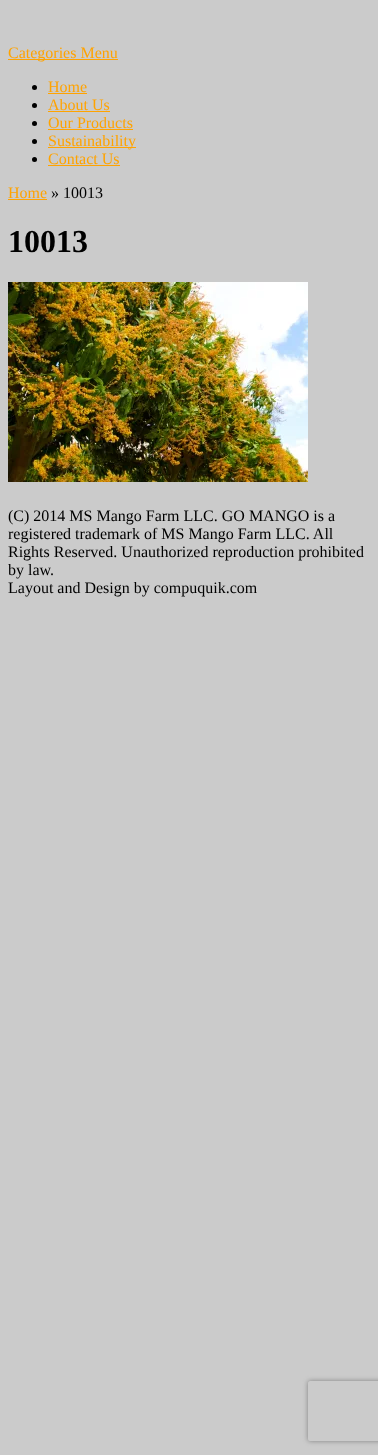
async function draw(canvas) {
	canvas.width = 378;
	canvas.height = 1455;
	const c = canvas.getContext('2d');
	c.miterLimit = 4;
	c.fontKerning = 'normal';
	async function loadImage(src) {
		const img = new Image();
		img.src = src;
		await img.decode();
		return img;
	}

	c.fillStyle = '#cbcbcb';
	c.fillRect(0, 0, 378, 1455);
	c.fillStyle = '#ffa300';
	c.fillRect(8, 59, 110, 1);
	c.font = '16px Liberation Serif';
	c.fillText('Categories Menu', 8, 58);
	c.fillStyle = '#000';
	c.beginPath();
	c.arc(34.5, 87.5, 2.5, 0, 2 * Math.PI);
	c.fill();
	c.fillStyle = '#ffa300';
	c.fillText('Home', 48, 92);
	c.fillRect(48, 93, 39, 1);
	c.fillStyle = '#000';
	c.beginPath();
	c.arc(34.5, 105.5, 2.5, 0, 2 * Math.PI);
	c.fill();
	c.fillStyle = '#ffa300';
	c.fillText('About Us', 48, 110);
	c.fillRect(48, 111, 62, 1);
	c.fillStyle = '#000';
	c.beginPath();
	c.arc(34.5, 123.5, 2.5, 0, 2 * Math.PI);
	c.fill();
	c.fillStyle = '#ffa300';
	c.fillText('Our Products', 48, 128);
	c.fillRect(48, 129, 85, 1);
	c.fillStyle = '#000';
	c.beginPath();
	c.arc(34.5, 141.5, 2.5, 0, 2 * Math.PI);
	c.fill();
	c.fillStyle = '#ffa300';
	c.fillRect(48, 147, 88, 1);
	c.fillText('Sustainability', 48, 146);
	c.fillStyle = '#000';
	c.beginPath();
	c.arc(34.5, 159.5, 2.5, 0, 2 * Math.PI);
	c.fill();
	c.fillStyle = '#ffa300';
	c.fillText('Contact Us', 48, 164);
	c.fillRect(48, 165, 72, 1);
	c.fillText('Home', 8, 198);
	c.fillRect(8, 199, 39, 1);
	c.fillStyle = '#000';
	c.fillText('» 10013', 51, 198);
	c.font = 'bold 32px Liberation Serif';
	c.fillText('10013', 8, 252);
	c.drawImage(await loadImage('img1.png'), 8, 282, 300, 200);
	c.font = '16px Liberation Serif';
	for (const [text, x, y] of [
		['(C) 2014 MS Mango Farm LLC. GO MANGO is a', 8, 521],
		['registered trademark of MS Mango Farm LLC. All', 8, 539],
		['Rights Reserved. Unauthorized reproduction prohibited', 8, 557],
		['by law.', 8, 575],
		['Layout and Design by compuquik.com', 8, 593],
	]) {
		c.fillText(text, x, y);
	}
	c.save();
	c.beginPath();
	c.moveTo(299, 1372);
	c.lineTo(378, 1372);
	c.lineTo(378, 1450);
	c.lineTo(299, 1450);
	c.closePath();
	c.moveTo(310, 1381);
	c.lineTo(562, 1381);
	c.bezierCurveTo(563, 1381, 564, 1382, 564, 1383);
	c.lineTo(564, 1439);
	c.bezierCurveTo(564, 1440, 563, 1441, 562, 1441);
	c.lineTo(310, 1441);
	c.bezierCurveTo(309, 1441, 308, 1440, 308, 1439);
	c.lineTo(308, 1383);
	c.bezierCurveTo(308, 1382, 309, 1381, 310, 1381);
	c.closePath();
	c.clip('evenodd');
	c.fillStyle = '#808080';
	c.filter = 'blur(2.5px)';
	c.beginPath();
	c.roundRect(308, 1381, 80, 60, 2);
	c.fill();
	c.filter = 'none';
	c.restore();
}

draw(document.querySelector('canvas'));
